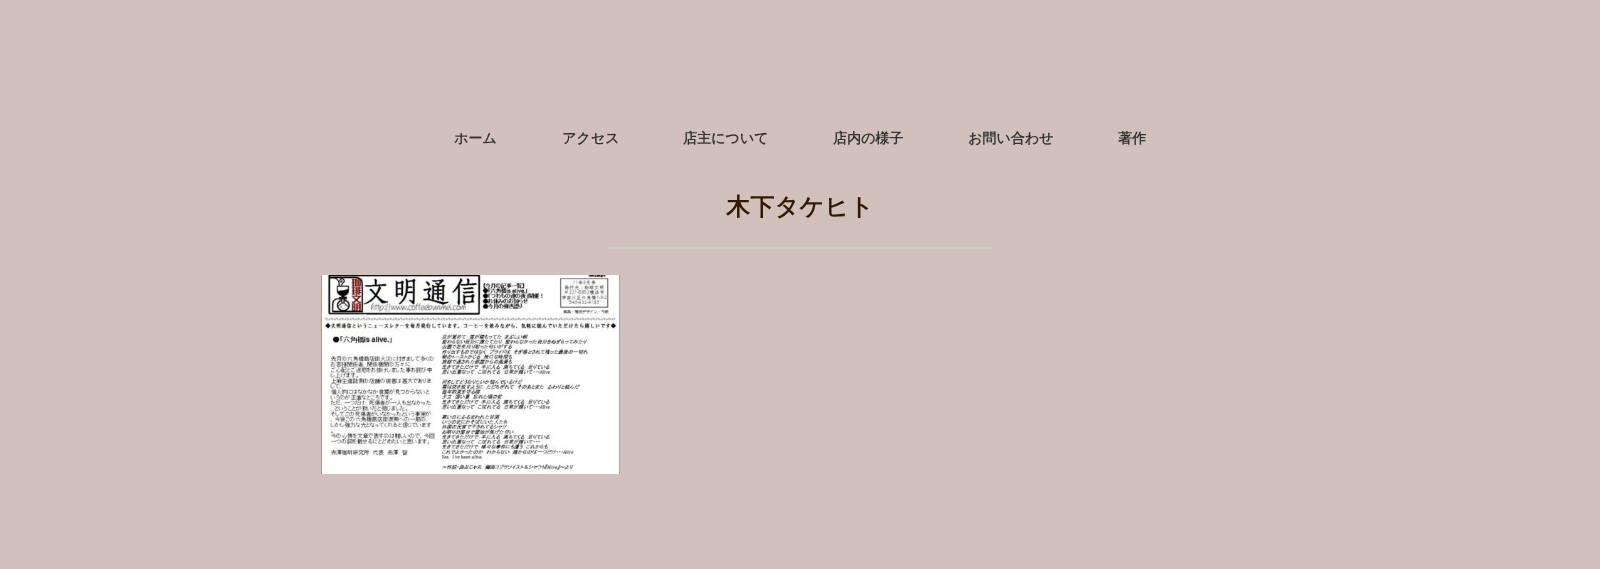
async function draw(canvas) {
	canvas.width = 1600;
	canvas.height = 569;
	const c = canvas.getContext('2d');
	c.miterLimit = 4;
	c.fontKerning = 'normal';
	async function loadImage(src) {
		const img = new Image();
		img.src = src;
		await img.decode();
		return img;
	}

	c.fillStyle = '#d1c0bb';
	c.fillRect(0, 0, 1600, 569);
	c.font = 'bold 14px WenQuanYi Zen Hei';
	c.fillStyle = '#333';
	for (const [text, x, y] of [
		['ホーム', 454, 143],
		['アクセス', 562, 143],
		['店主について', 683, 143],
		['店内の様子', 833, 143],
		['お問い合わせ', 968, 143],
		['著作', 1118, 143],
	]) {
		c.fillText(text, x, y);
	}
	c.fillStyle = '#ccc';
	c.fillRect(610, 247, 380, 2);
	c.letterSpacing = '0.25px';
	c.font = 'bold 24px WenQuanYi Zen Hei';
	c.fillStyle = '#331900';
	c.fillText('木下タケヒト', 726, 215);
	c.drawImage(await loadImage('img1.png'), 321, 275, 299, 199);
}

draw(document.querySelector('canvas'));
